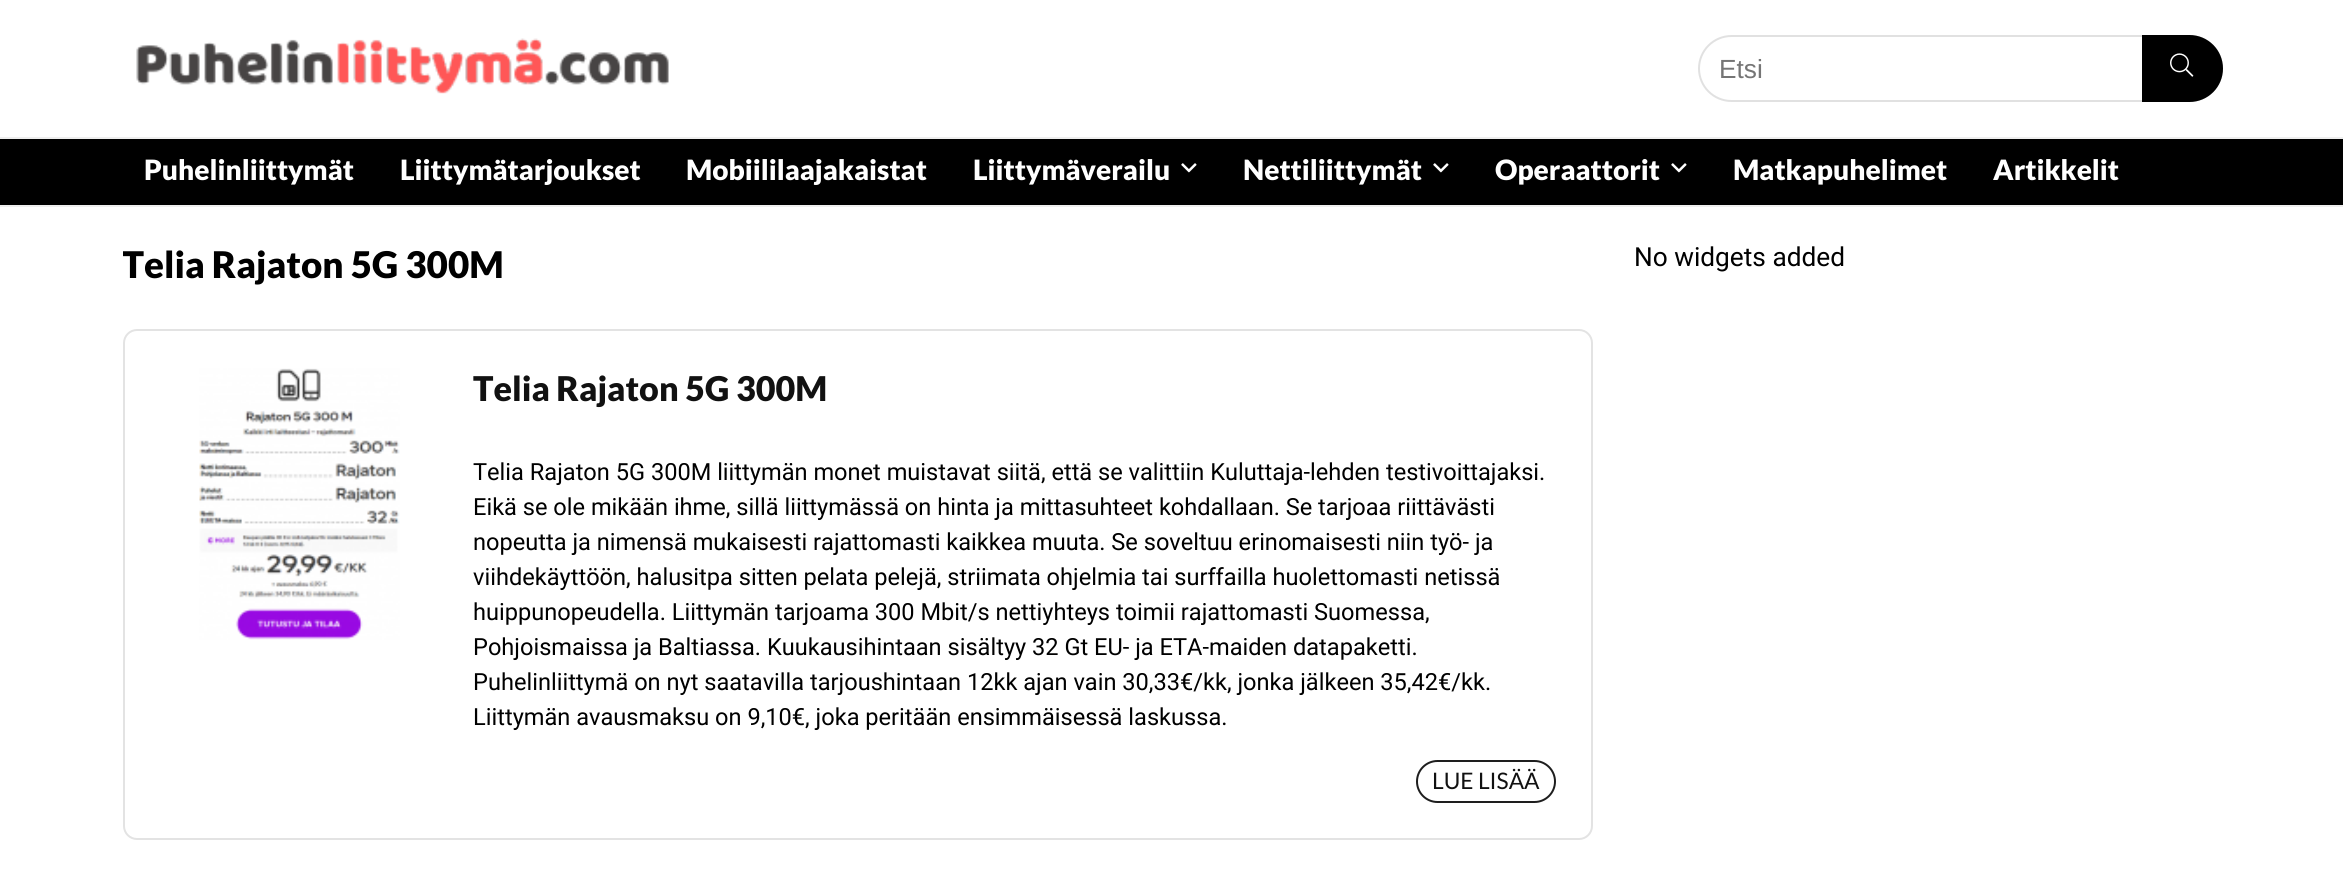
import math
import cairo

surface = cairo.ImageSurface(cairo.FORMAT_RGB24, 2343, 887)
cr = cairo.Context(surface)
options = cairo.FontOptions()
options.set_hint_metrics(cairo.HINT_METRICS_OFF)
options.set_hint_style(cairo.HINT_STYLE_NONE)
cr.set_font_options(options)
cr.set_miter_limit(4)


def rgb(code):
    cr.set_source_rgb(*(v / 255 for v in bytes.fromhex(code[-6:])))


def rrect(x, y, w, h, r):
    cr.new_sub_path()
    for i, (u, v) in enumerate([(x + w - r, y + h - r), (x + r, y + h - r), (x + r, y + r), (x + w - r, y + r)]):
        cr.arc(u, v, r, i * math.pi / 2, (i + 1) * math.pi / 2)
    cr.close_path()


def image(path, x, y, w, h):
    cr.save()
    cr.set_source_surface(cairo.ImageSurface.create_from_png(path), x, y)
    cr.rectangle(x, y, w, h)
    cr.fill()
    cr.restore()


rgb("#ffffff")
cr.paint()
image("img/1.png", 136, 38, 533, 56)
rrect(1699, 36, 523, 65, 32.5)
rgb("#e1e1e1")
cr.stroke()
rgb("#000000")
cr.new_path()
cr.move_to(2142, 35)
cr.line_to(2189.5, 35)
cr.curve_to(2208, 35, 2223, 50, 2223, 68.5)
cr.curve_to(2223, 87, 2208, 102, 2189.5, 102)
cr.line_to(2142, 102)
cr.close_path()
cr.fill()
image("img/2.png", 2170, 53, 24, 24)
for x, y, w, h, color in [
    (0, 139, 2343, 66, "#000000"),
    (0, 137, 2343, 2, "#eeeeee"),
    (0, 205, 2343, 2, "#eeeeee"),
]:
    rgb(color)
    cr.rectangle(x, y, w, h)
    cr.fill()
image("img/3.png", 1181, 163, 16, 10)
image("img/3.png", 1433, 163, 16, 10)
image("img/3.png", 1671, 163, 16, 10)
rrect(124, 330, 1468, 509, 13)
rgb("#e3e3e3")
cr.stroke()
image("img/4.png", 199, 368, 201, 272)
rrect(1417, 761, 138, 41, 20.5)
rgb("#1e1e1e")
cr.stroke()
cr.select_font_face("Liberation Sans")
cr.set_font_size(26.25)
rgb("#757575")
cr.move_to(1719, 78)
cr.show_text("Etsi")
cr.select_font_face("Lato Black")
cr.set_font_size(28)
rgb("#ffffff")
for x, y, s in [
    (144, 180, "Puhelinliittymät"),
    (400, 180, "Liittymätarjoukset"),
    (686, 180, "Mobiililaajakaistat"),
    (973, 180, "Liittymäverailu"),
    (1243, 180, "Nettiliittymät"),
    (1495, 180, "Operaattorit"),
    (1733, 180, "Matkapuhelimet"),
    (1993, 180, "Artikkelit"),
]:
    cr.move_to(x, y)
    cr.show_text(s)
cr.save()
cr.rectangle(123, 242, 1470, 43)
cr.clip()
cr.set_font_size(36.75)
rgb("#000000")
cr.move_to(122, 278)
cr.show_text("Telia Rajaton 5G 300M")
cr.restore()
cr.set_font_size(34.1)
rgb("#111111")
cr.move_to(473, 401)
cr.show_text("Telia Rajaton 5G 300M")
cr.select_font_face("Roboto")
cr.set_font_size(23.6)
rgb("#000000")
for x, y, s in [
    (473, 480, "Telia Rajaton 5G 300M liittymän monet muistavat siitä, että se valittiin Kuluttaja-lehden testivoittajaksi."),
    (473, 515, "Eikä se ole mikään ihme, sillä liittymässä on hinta ja mittasuhteet kohdallaan. Se tarjoaa riittävästi"),
    (473, 550, "nopeutta ja nimensä mukaisesti rajattomasti kaikkea muuta. Se soveltuu erinomaisesti niin työ- ja"),
    (473, 585, "viihdekäyttöön, halusitpa sitten pelata pelejä, striimata ohjelmia tai surffailla huolettomasti netissä"),
    (473, 620, "huippunopeudella. Liittymän tarjoama 300 Mbit/s nettiyhteys toimii rajattomasti Suomessa,"),
    (473, 655, "Pohjoismaissa ja Baltiassa. Kuukausihintaan sisältyy 32 Gt EU- ja ETA-maiden datapaketti."),
    (473, 690, "Puhelinliittymä on nyt saatavilla tarjoushintaan 12kk ajan vain 30,33€/kk, jonka jälkeen 35,42€/kk."),
    (473, 725, "Liittymän avausmaksu on 9,10€, joka peritään ensimmäisessä laskussa."),
]:
    cr.move_to(x, y)
    cr.show_text(s)
cr.select_font_face("Lato")
cr.set_font_size(22.75)
rgb("#111111")
cr.move_to(1432, 789)
cr.show_text("LUE LISÄÄ")
cr.select_font_face("Roboto")
cr.set_font_size(26.25)
rgb("#000000")
cr.move_to(1634, 266)
cr.show_text("No widgets added")
surface.write_to_png("page.png")
